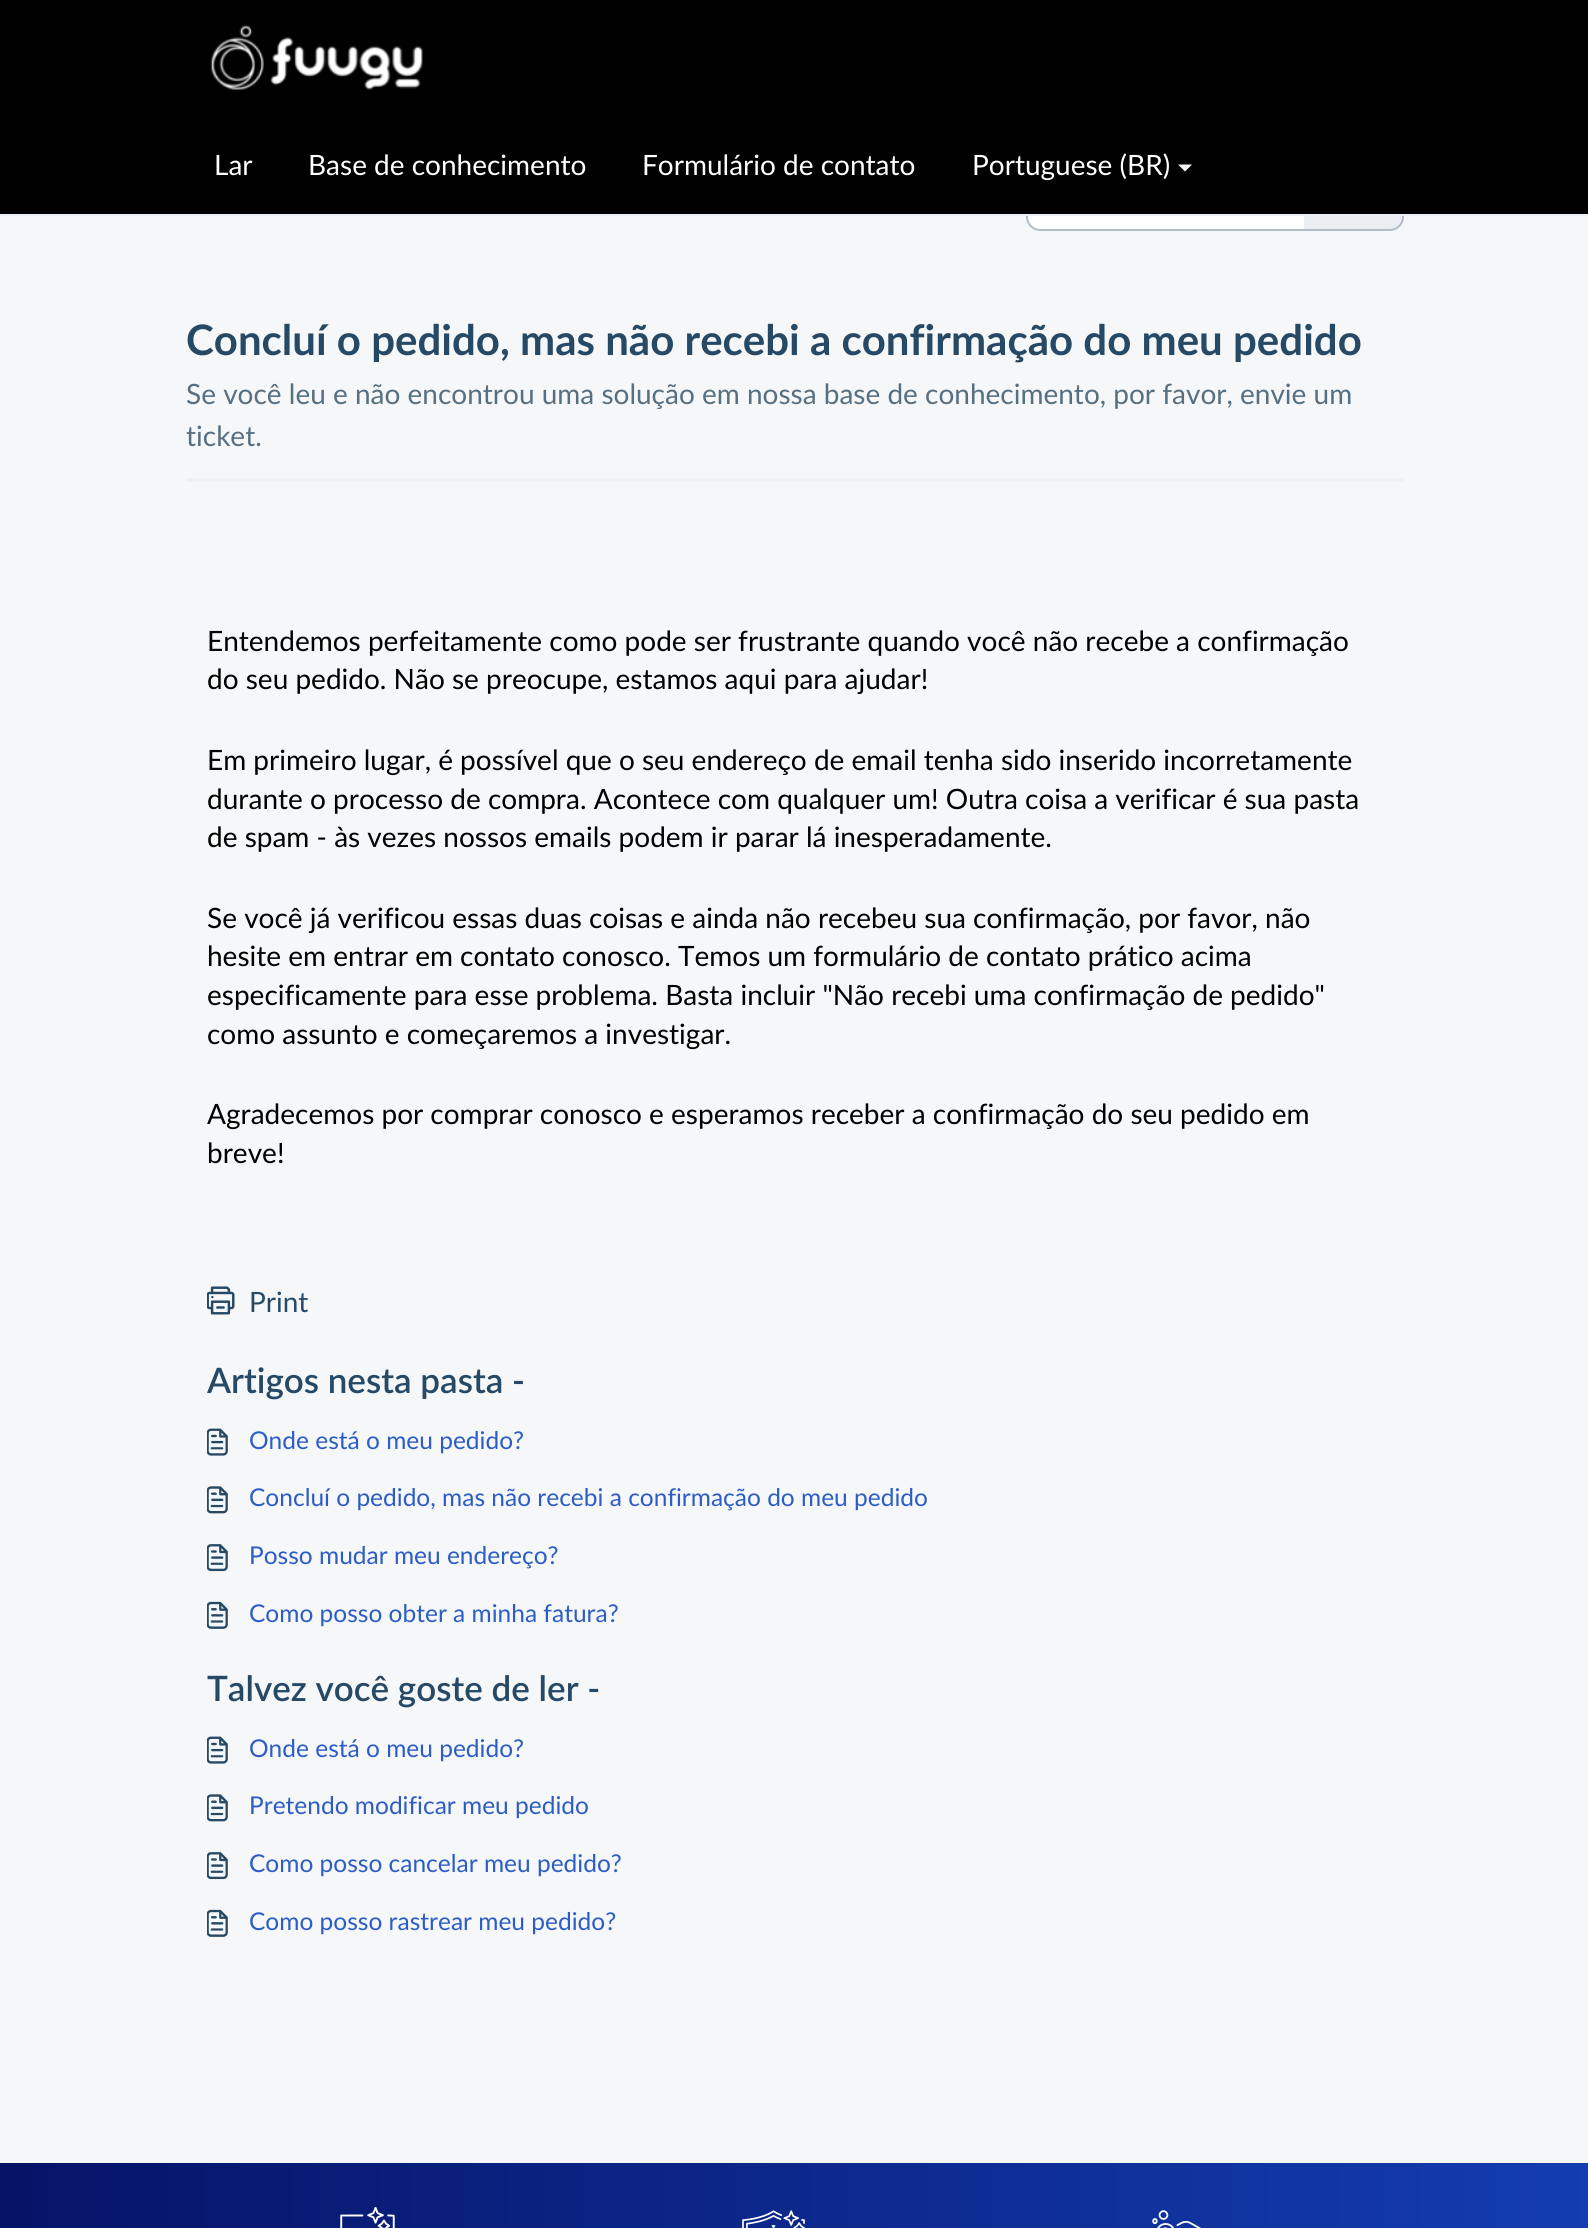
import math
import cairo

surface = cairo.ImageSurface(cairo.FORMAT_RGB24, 1588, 2228)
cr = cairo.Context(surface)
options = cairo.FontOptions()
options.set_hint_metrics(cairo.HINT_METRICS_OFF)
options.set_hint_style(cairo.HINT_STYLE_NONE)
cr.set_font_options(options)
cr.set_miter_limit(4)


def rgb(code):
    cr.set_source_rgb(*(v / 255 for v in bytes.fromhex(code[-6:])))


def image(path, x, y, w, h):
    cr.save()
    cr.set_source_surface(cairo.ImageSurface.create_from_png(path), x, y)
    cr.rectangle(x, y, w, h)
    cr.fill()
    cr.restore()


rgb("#f5f7f9")
cr.paint()
rgb("#ffffff")
cr.new_path()
cr.move_to(1040, 155)
cr.line_to(1305, 155)
cr.line_to(1305, 230)
cr.line_to(1040, 230)
cr.curve_to(1033, 230, 1027, 224, 1027, 217)
cr.line_to(1027, 168)
cr.curve_to(1027, 161, 1033, 155, 1040, 155)
cr.close_path()
cr.fill_preserve()
rgb("#b1bdc8")
cr.stroke()
rgb("#ebeff3")
cr.new_path()
cr.move_to(1304, 154)
cr.line_to(1390, 154)
cr.curve_to(1397.5, 154, 1404, 160.5, 1404, 168)
cr.line_to(1404, 217)
cr.curve_to(1404, 224.5, 1397.5, 231, 1390, 231)
cr.line_to(1304, 231)
cr.close_path()
cr.fill()
rgb("#b1bdc8")
cr.set_fill_rule(cairo.FILL_RULE_EVEN_ODD)
cr.new_path()
cr.move_to(1304, 154)
cr.line_to(1390, 154)
cr.curve_to(1397, 154, 1404, 160, 1404, 168)
cr.line_to(1404, 217)
cr.curve_to(1404, 225, 1397, 231, 1390, 231)
cr.line_to(1304, 231)
cr.close_path()
cr.move_to(1304, 156)
cr.line_to(1390, 156)
cr.curve_to(1396, 156, 1402, 161, 1402, 168)
cr.line_to(1402, 217)
cr.curve_to(1402, 224, 1396, 229, 1390, 229)
cr.line_to(1304, 229)
cr.close_path()
cr.fill()
rgb("#000000")
cr.rectangle(0, 0, 1588, 214)
cr.fill()
rgb("#ebeff3")
cr.rectangle(0, 214, 1588, 2)
cr.fill()
image("img/1.png", 210, 25, 213, 65)
rgb("#ffffff")
cr.set_fill_rule(cairo.FILL_RULE_WINDING)
cr.new_path()
cr.move_to(1178, 164.5)
cr.line_to(1192, 164.5)
cr.line_to(1185, 171.5)
cr.close_path()
cr.fill()
rgb("#eff1f2")
cr.rectangle(186, 478, 1218, 4)
cr.fill()
image("img/2.png", 207, 1286, 28, 29)
image("img/3.png", 207, 1428, 21, 28)
image("img/4.png", 207, 1486, 21, 28)
image("img/5.png", 207, 1544, 21, 28)
image("img/6.png", 207, 1601, 21, 28)
image("img/3.png", 207, 1736, 21, 28)
image("img/4.png", 207, 1794, 21, 28)
image("img/5.png", 207, 1852, 21, 28)
image("img/6.png", 207, 1909, 21, 28)
gradient = cairo.LinearGradient(-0.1, 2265, 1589, 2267)
gradient.add_color_stop_rgba(0, 0.024, 0.075, 0.404, 1)
gradient.add_color_stop_rgba(1, 0.075, 0.239, 0.69, 1)
cr.set_source(gradient)
cr.rectangle(0, 2163, 1588, 65)
cr.fill()
image("img/7.png", 340, 2207, 55, 21)
image("img/8.png", 742, 2210, 63, 18)
image("img/9.png", 1152, 2210, 49, 18)
cr.select_font_face("Lato")
cr.set_font_size(28)
rgb("#ffffff")
for x, y, s in [
    (214, 175, "Lar"),
    (308, 175, "Base de conhecimento"),
    (642, 175, "Formulário de contato"),
    (972, 175, "Portuguese (BR)"),
]:
    cr.move_to(x, y)
    cr.show_text(s)
cr.select_font_face("Lato", cairo.FONT_SLANT_NORMAL, cairo.FONT_WEIGHT_BOLD)
cr.set_font_size(42)
rgb("#264966")
cr.move_to(186, 355)
cr.show_text("Concluí o pedido, mas não recebi a confirmação do meu pedido")
cr.select_font_face("Lato")
cr.set_font_size(28)
rgb("#566f81")
cr.move_to(186, 404)
cr.show_text("Se você leu e não encontrou uma solução em nossa base de conhecimento, por favor, envie um")
cr.move_to(186, 446)
cr.show_text("ticket.")
rgb("#000000")
for x, y, s in [
    (207, 651, "Entendemos perfeitamente como pode ser frustrante quando você não recebe a confirmação"),
    (207, 689, "do seu pedido. Não se preocupe, estamos aqui para ajudar!"),
    (207, 770, "Em primeiro lugar, é possível que o seu endereço de email tenha sido inserido incorretamente"),
    (207, 809, "durante o processo de compra. Acontece com qualquer um! Outra coisa a verificar é sua pasta"),
    (207, 847, "de spam - às vezes nossos emails podem ir parar lá inesperadamente."),
    (207, 928, "Se você já verificou essas duas coisas e ainda não recebeu sua confirmação, por favor, não"),
    (207, 966, "hesite em entrar em contato conosco. Temos um formulário de contato prático acima"),
    (207, 1005, "especificamente para esse problema. Basta incluir \"Não recebi uma confirmação de pedido\""),
    (207, 1044, "como assunto e começaremos a investigar."),
    (207, 1124, "Agradecemos por comprar conosco e esperamos receber a confirmação do seu pedido em"),
    (207, 1163, "breve!"),
]:
    cr.move_to(x, y)
    cr.show_text(s)
rgb("#264966")
cr.move_to(249, 1312)
cr.show_text("Print")
cr.select_font_face("Lato SemiBold")
cr.set_font_size(35)
cr.move_to(207, 1393)
cr.show_text("Artigos nesta pasta -")
cr.select_font_face("Lato")
cr.set_font_size(24.5)
rgb("#2c5cc5")
for x, y, s in [
    (249, 1449, "Onde está o meu pedido?"),
    (249, 1506, "Concluí o pedido, mas não recebi a confirmação do meu pedido"),
    (249, 1564, "Posso mudar meu endereço?"),
    (249, 1622, "Como posso obter a minha fatura?"),
]:
    cr.move_to(x, y)
    cr.show_text(s)
cr.select_font_face("Lato SemiBold")
cr.set_font_size(35)
rgb("#264966")
cr.move_to(207, 1701)
cr.show_text("Talvez você goste de ler -")
cr.select_font_face("Lato")
cr.set_font_size(24.5)
rgb("#2c5cc5")
for x, y, s in [
    (249, 1757, "Onde está o meu pedido?"),
    (249, 1814, "Pretendo modificar meu pedido"),
    (249, 1872, "Como posso cancelar meu pedido?"),
    (249, 1930, "Como posso rastrear meu pedido?"),
]:
    cr.move_to(x, y)
    cr.show_text(s)
surface.write_to_png("page.png")
